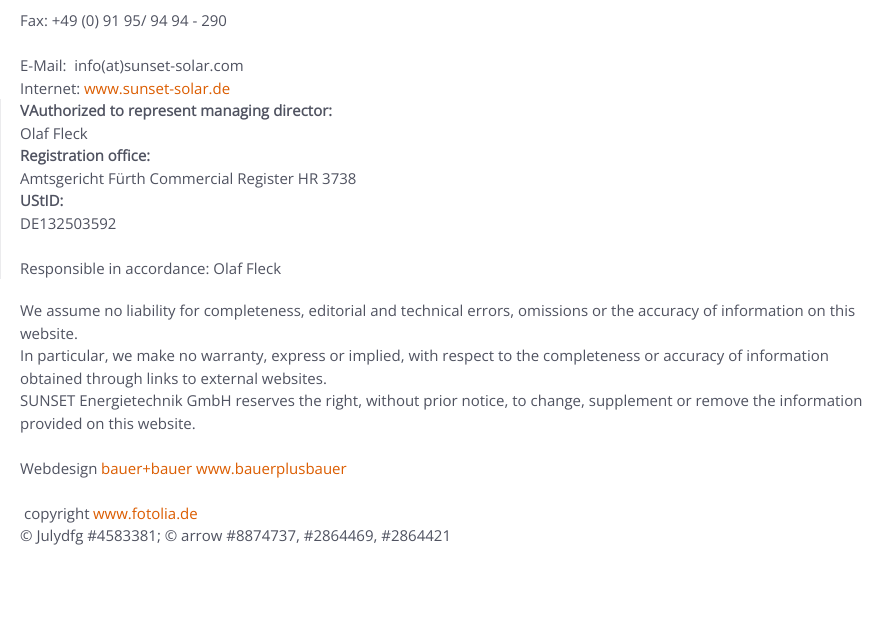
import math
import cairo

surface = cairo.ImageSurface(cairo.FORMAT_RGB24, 887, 643)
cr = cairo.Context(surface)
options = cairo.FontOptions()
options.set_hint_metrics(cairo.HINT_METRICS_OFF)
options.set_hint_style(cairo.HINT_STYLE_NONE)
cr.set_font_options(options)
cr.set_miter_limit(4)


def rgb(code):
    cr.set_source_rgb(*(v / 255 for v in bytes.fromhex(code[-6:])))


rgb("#ffffff")
cr.paint()
rgb("#ebebed")
cr.rectangle(0, 99, 1, 180)
cr.fill()
cr.select_font_face("Open Sans")
cr.set_font_size(15)
rgb("#4f5260")
for x, y, s in [
    (20, 26, "Fax: +49 (0) 91 95/ 94 94 - 290"),
    (20, 71, "E-Mail:  info(at)sunset-solar.com"),
    (20, 94, "Internet:"),
]:
    cr.move_to(x, y)
    cr.show_text(s)
rgb("#db5c00")
cr.move_to(84, 94)
cr.show_text("www.sunset-solar.de")
cr.select_font_face("Open Sans", cairo.FONT_SLANT_NORMAL, cairo.FONT_WEIGHT_BOLD)
rgb("#4f5260")
cr.move_to(20, 116)
cr.show_text("VAuthorized to represent managing director:")
cr.select_font_face("Open Sans")
cr.move_to(20, 139)
cr.show_text("Olaf Fleck")
cr.select_font_face("Open Sans", cairo.FONT_SLANT_NORMAL, cairo.FONT_WEIGHT_BOLD)
cr.move_to(20, 161)
cr.show_text("Registration office:")
cr.select_font_face("Open Sans")
cr.move_to(20, 184)
cr.show_text("Amtsgericht Fürth Commercial Register HR 3738")
cr.select_font_face("Open Sans", cairo.FONT_SLANT_NORMAL, cairo.FONT_WEIGHT_BOLD)
cr.move_to(20, 206)
cr.show_text("UStID:")
cr.select_font_face("Open Sans")
for x, y, s in [
    (20, 229, "DE132503592"),
    (20, 274, "Responsible in accordance: Olaf Fleck"),
    (20, 316, "We assume no liability for completeness, editorial and technical errors, omissions or the accuracy of information on this"),
    (20, 339, "website."),
    (20, 361, "In particular, we make no warranty, express or implied, with respect to the completeness or accuracy of information"),
    (20, 384, "obtained through links to external websites."),
    (20, 406, "SUNSET Energietechnik GmbH reserves the right, without prior notice, to change, supplement or remove the information"),
    (20, 429, "provided on this website."),
    (20, 474, "Webdesign"),
]:
    cr.move_to(x, y)
    cr.show_text(s)
rgb("#db5c00")
cr.move_to(101, 474)
cr.show_text("bauer+bauer www.bauerplusbauer")
rgb("#4f5260")
cr.move_to(24, 519)
cr.show_text("copyright")
rgb("#db5c00")
cr.move_to(93, 519)
cr.show_text("www.fotolia.de")
rgb("#4f5260")
cr.move_to(20, 541)
cr.show_text("© Julydfg #4583381; © arrow #8874737, #2864469, #2864421")
surface.write_to_png("page.png")
